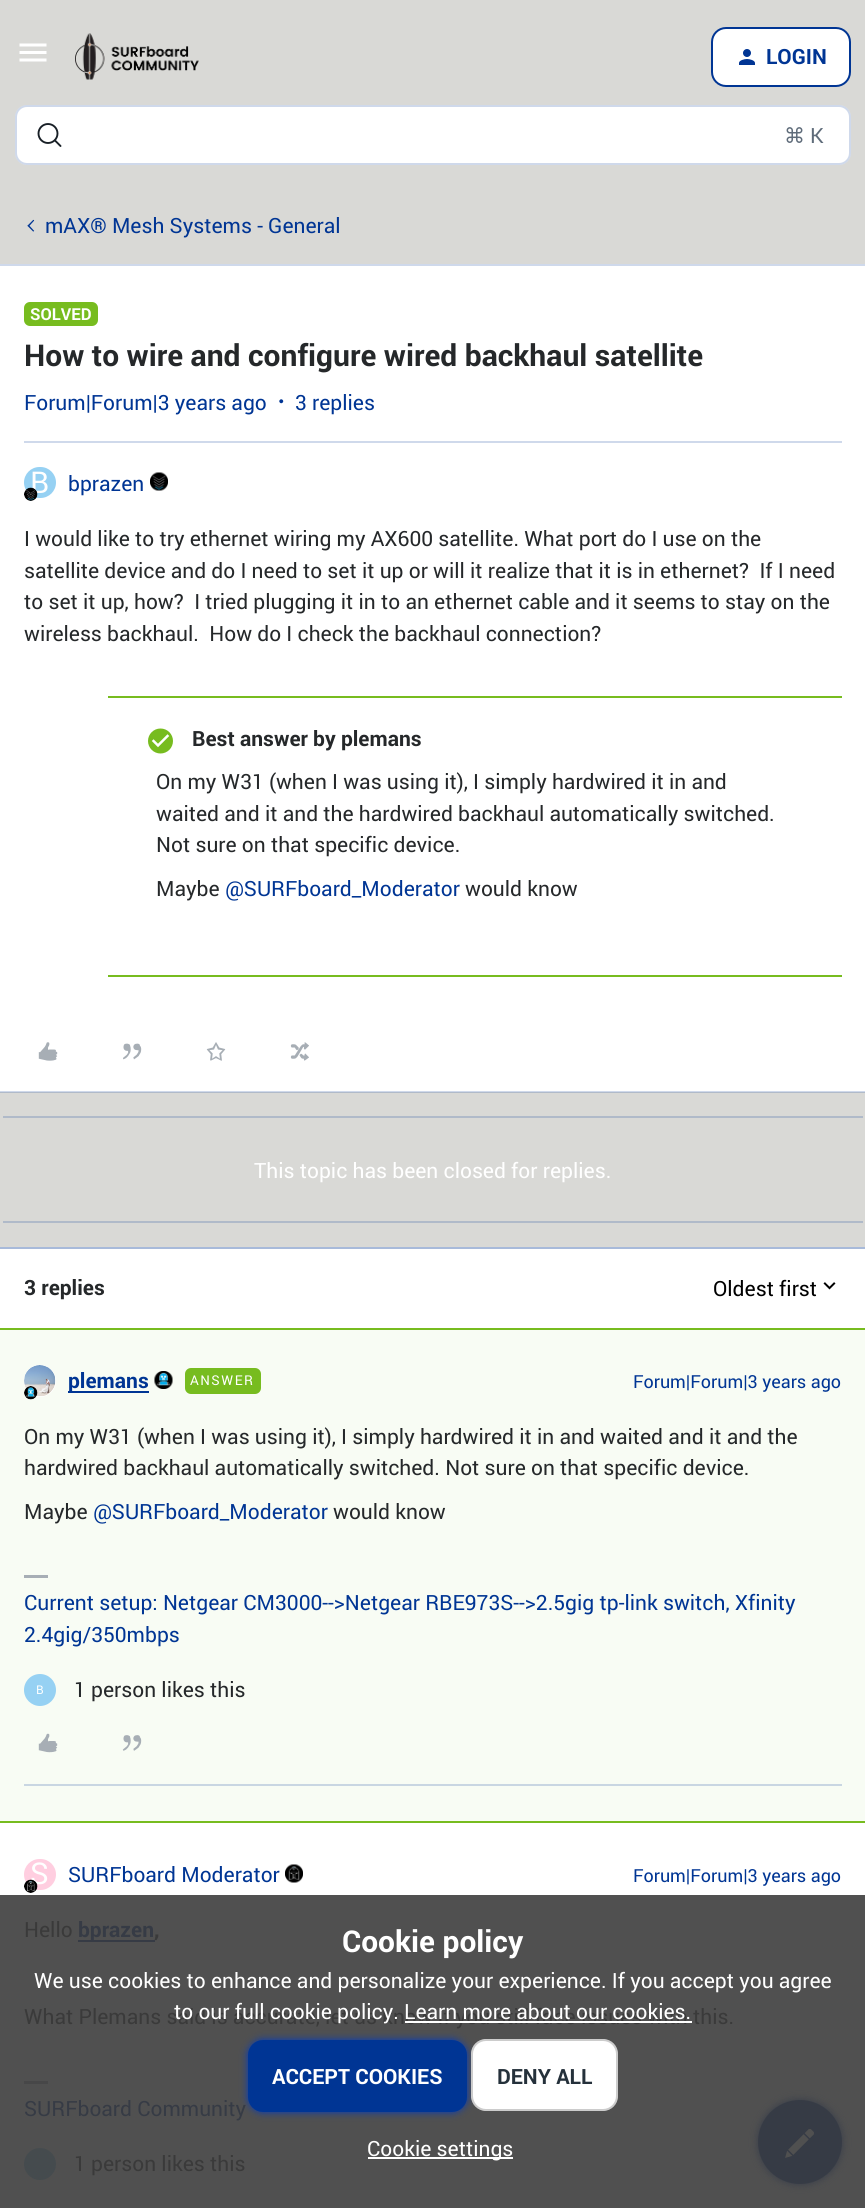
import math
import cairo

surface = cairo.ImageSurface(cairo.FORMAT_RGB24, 865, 2208)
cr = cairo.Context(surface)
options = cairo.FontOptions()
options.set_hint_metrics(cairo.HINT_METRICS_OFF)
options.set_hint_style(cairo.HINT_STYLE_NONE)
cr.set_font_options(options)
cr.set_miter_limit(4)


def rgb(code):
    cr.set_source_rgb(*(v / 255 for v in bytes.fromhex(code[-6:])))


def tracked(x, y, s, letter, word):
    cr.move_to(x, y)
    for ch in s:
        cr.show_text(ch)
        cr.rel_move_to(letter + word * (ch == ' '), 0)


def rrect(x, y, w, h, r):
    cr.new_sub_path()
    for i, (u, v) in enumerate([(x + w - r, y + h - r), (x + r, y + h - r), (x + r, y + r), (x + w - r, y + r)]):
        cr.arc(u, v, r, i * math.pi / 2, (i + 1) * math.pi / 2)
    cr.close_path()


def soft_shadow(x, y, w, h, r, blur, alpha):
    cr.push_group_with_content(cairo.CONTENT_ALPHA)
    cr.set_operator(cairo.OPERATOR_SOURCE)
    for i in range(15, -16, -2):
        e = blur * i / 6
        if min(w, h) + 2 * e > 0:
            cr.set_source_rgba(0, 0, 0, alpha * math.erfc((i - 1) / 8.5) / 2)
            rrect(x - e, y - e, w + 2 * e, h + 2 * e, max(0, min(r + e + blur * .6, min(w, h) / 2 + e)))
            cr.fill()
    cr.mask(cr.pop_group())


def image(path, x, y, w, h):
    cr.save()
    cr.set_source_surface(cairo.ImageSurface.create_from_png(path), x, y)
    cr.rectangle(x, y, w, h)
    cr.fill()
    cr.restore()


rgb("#d9d9d6")
cr.paint()
rgb("#b0bac9")
cr.rectangle(0, 1092, 865, 1)
cr.fill()
image("img/1.png", 19, 43, 28, 19)
image("img/2.png", 75, 33, 124, 47)
rgb("#ffffff")
rrect(712, 28, 138, 58, 14)
cr.fill_preserve()
rgb("#003594")
cr.stroke()
image("img/3.png", 739, 49, 16, 16)
rgb("#ffffff")
rrect(15, 105, 836, 60, 12)
cr.fill()
rrect(16, 106, 834, 58, 11)
cr.set_source_rgba(0, 0.208, 0.58, 0.19)
cr.stroke()
cr.arc(48, 133.5, 9.5, 0, 2 * math.pi)
rgb("#181f26")
cr.set_line_width(1.9)
cr.stroke()
cr.new_path()
cr.move_to(55, 140.5)
cr.line_to(60.5, 146)
cr.set_line_cap(cairo.LINE_CAP_ROUND)
cr.stroke()
image("img/4.png", 27, 219, 8, 13)
for x, y, w, h, color in [
    (0, 266, 865, 825, "#ffffff"),
    (0, 1091, 865, 1, "#cfd9eb"),
    (0, 264, 865, 2, "#cfd9eb"),
]:
    rgb(color)
    cr.rectangle(x, y, w, h)
    cr.fill()
rgb("#77bc1f")
rrect(24, 302, 74, 24, 6)
cr.fill()
image("img/5.png", 279, 399, 5, 5)
rgb("#cfd9eb")
cr.rectangle(24, 441, 818, 2)
cr.fill()
rgb("#96d1f3")
rrect(24, 467, 32, 31, 15.5)
cr.fill()
image("img/7.png", 150, 472, 18, 19)
rgb("#77bc1f")
cr.rectangle(108, 696, 734, 2)
cr.fill()
cr.rectangle(108, 975, 734, 2)
cr.fill()
image("img/8.png", 148, 728, 25, 26)
image("img/9.png", 38, 1042, 20, 19)
image("img/10.png", 123, 1043, 19, 17)
image("img/11.png", 206, 1042, 20, 19)
image("img/12.png", 290, 1042, 19, 19)
for x, y, w, h, color in [
    (3, 1116, 860, 2, "#b0bac9"),
    (3, 1221, 860, 2, "#b0bac9"),
    (0, 1249, 865, 646, "#ffffff"),
    (0, 1895, 865, 313, "#505050"),
    (0, 1330, 865, 491, "#f8fcf4"),
    (0, 1247, 865, 2, "#a8bada"),
]:
    rgb(color)
    cr.rectangle(x, y, w, h)
    cr.fill()
image("img/13.png", 823, 1282, 13, 8)
rgb("#77bc1f")
cr.rectangle(0, 1328, 865, 2)
cr.fill()
cr.rectangle(0, 1821, 865, 2)
cr.fill()
rgb("#ffffff")
cr.arc(40, 1381, 16, 0, 2 * math.pi)
cr.fill()
image("img/14.png", 24, 1365, 32, 32)
image("img/15.png", 24, 1386, 14, 14)
rgb("#003594")
cr.rectangle(68, 1391, 81, 2)
cr.fill()
image("img/16.png", 154, 1371, 19, 18)
rgb("#77bc1f")
rrect(185, 1368, 76, 26, 6)
cr.fill()
rgb("#a7aeb5")
cr.rectangle(24, 1575, 24, 3)
cr.fill()
rgb("#96d1f3")
cr.arc(40, 1690, 16, 0, 2 * math.pi)
cr.fill()
image("img/17.png", 38, 1733, 20, 20)
image("img/18.png", 122, 1735, 20, 16)
rgb("#c9d6e2")
cr.rectangle(24, 1784, 818, 2)
cr.fill()
rgb("#ffcee0")
rrect(24, 1859, 32, 31, 15.5)
cr.fill()
image("img/20.png", 285, 1864, 18, 19)
rgb("#363b45")
cr.rectangle(78, 1940, 77, 2)
cr.fill()
rgb("#474748")
cr.rectangle(24, 2081, 24, 3)
cr.fill()
rgb("#454b4e")
cr.arc(40, 2164, 16, 0, 2 * math.pi)
cr.fill()
image("img/21.png", 47, 2207, 2, 1)
rgb("#0039c1")
soft_shadow(248, 2040, 219, 72, 15, 4, 1)
rgb("#003594")
rrect(249, 2041, 217, 70, 14)
cr.fill_preserve()
cr.set_line_width(2)
cr.set_line_cap(cairo.LINE_CAP_BUTT)
cr.stroke()
rgb("#ffffff")
rrect(471, 2039, 147, 72, 15)
cr.fill()
rrect(472, 2040, 145, 70, 14)
cr.set_source_rgba(0, 0, 0, 0.2)
cr.stroke()
rgb("#ffffff")
cr.rectangle(368, 2157, 145, 2)
cr.fill()
rgb("#363c49")
soft_shadow(758, 2100, 84, 84, 42, 4, 1)
rgb("#363b45")
cr.arc(800, 2142, 41, 0, 2 * math.pi)
cr.fill_preserve()
cr.stroke()
image("img/22.png", 785, 2129, 29, 29)
cr.select_font_face("Roboto", cairo.FONT_SLANT_NORMAL, cairo.FONT_WEIGHT_BOLD)
cr.set_font_size(21)
rgb("#003594")
cr.move_to(766, 64)
cr.show_text("LOGIN")
cr.select_font_face("DejaVu Sans")
rgb("#5f6c7a")
cr.move_to(784, 143)
cr.show_text("⌘")
cr.select_font_face("Roboto")
cr.move_to(810, 143)
cr.show_text("K")
rgb("#003594")
cr.move_to(45, 233)
cr.show_text("mAX® Mesh Systems - General")
cr.select_font_face("Roboto", cairo.FONT_SLANT_NORMAL, cairo.FONT_WEIGHT_BOLD)
cr.set_font_size(16.5)
rgb("#ffffff")
cr.move_to(30, 320)
cr.show_text("SOLVED")
cr.set_font_size(30)
rgb("#25282a")
cr.move_to(24, 366)
cr.show_text("How to wire and configure wired backhaul satellite")
cr.select_font_face("Roboto")
cr.set_font_size(21)
rgb("#003594")
cr.move_to(24, 410)
cr.show_text("Forum|Forum|3 years ago")
cr.move_to(295, 410)
cr.show_text("3 replies")
cr.set_font_size(30)
rgb("#ffffff")
cr.move_to(30, 493)
cr.show_text("B")
image("img/6.png", 24, 487, 14, 14)
cr.set_font_size(21)
rgb("#003594")
cr.move_to(68, 491)
cr.show_text("bprazen")
rgb("#25282a")
for x, y, s in [
    (24, 546, "I would like to try ethernet wiring my AX600 satellite. What port do I use on the"),
    (24, 578, "satellite device and do I need to set it up or will it realize that it is in ethernet?  If I need"),
    (24, 609, "to set it up, how?  I tried plugging it in to an ethernet cable and it seems to stay on the"),
    (24, 641, "wireless backhaul.  How do I check the backhaul connection?"),
]:
    cr.move_to(x, y)
    cr.show_text(s)
cr.select_font_face("Roboto", cairo.FONT_SLANT_NORMAL, cairo.FONT_WEIGHT_BOLD)
cr.move_to(192, 746)
cr.show_text("Best answer by plemans")
cr.select_font_face("Roboto")
for x, y, s in [
    (156, 789, "On my W31 (when I was using it), I simply hardwired it in and"),
    (156, 821, "waited and it and the hardwired backhaul automatically switched."),
    (156, 852, "Not sure on that specific device."),
    (156, 896, "Maybe"),
]:
    cr.move_to(x, y)
    cr.show_text(s)
rgb("#003594")
cr.move_to(225, 896)
cr.show_text("@SURFboard_Moderator")
rgb("#25282a")
cr.move_to(465, 896)
cr.show_text("would know")
rgb("#ffffff")
cr.move_to(254, 1178)
cr.show_text("This topic has been closed for replies.")
cr.select_font_face("Roboto", cairo.FONT_SLANT_NORMAL, cairo.FONT_WEIGHT_BOLD)
rgb("#25282a")
cr.move_to(24, 1295)
cr.show_text("3 replies")
cr.select_font_face("Roboto")
rgb("#000000")
cr.move_to(713, 1296)
cr.show_text("Oldest first")
cr.select_font_face("Roboto", cairo.FONT_SLANT_NORMAL, cairo.FONT_WEIGHT_BOLD)
rgb("#003594")
cr.move_to(68, 1388)
cr.show_text("plemans")
cr.select_font_face("Roboto")
cr.set_font_size(13.5)
rgb("#ffffff")
tracked(190, 1385, "ANSWER", 1.5, 0)
cr.set_font_size(18)
rgb("#003594")
cr.move_to(633, 1388)
cr.show_text("Forum|Forum|3 years ago")
cr.set_font_size(21)
rgb("#25282a")
for x, y, s in [
    (24, 1444, "On my W31 (when I was using it), I simply hardwired it in and waited and it and the"),
    (24, 1475, "hardwired backhaul automatically switched. Not sure on that specific device."),
    (24, 1519, "Maybe"),
]:
    cr.move_to(x, y)
    cr.show_text(s)
rgb("#003594")
cr.move_to(93, 1519)
cr.show_text("@SURFboard_Moderator")
rgb("#25282a")
cr.move_to(333, 1519)
cr.show_text("would know")
rgb("#003594")
cr.move_to(24, 1610)
cr.show_text("Current setup: Netgear CM3000-->Netgear RBE973S-->2.5gig tp-link switch, Xfinity")
cr.move_to(24, 1642)
cr.show_text("2.4gig/350mbps")
cr.set_font_size(12)
rgb("#ffffff")
cr.move_to(36, 1694)
cr.show_text("B")
cr.set_font_size(21)
rgb("#25282a")
cr.move_to(74, 1697)
cr.show_text("1 person likes this")
cr.set_font_size(30)
rgb("#ffffff")
cr.move_to(30, 1884)
cr.show_text("S")
image("img/19.png", 24, 1879, 14, 14)
cr.set_font_size(21)
rgb("#003594")
cr.move_to(68, 1882)
cr.show_text("SURFboard Moderator")
cr.set_font_size(18)
cr.move_to(633, 1882)
cr.show_text("Forum|Forum|3 years ago")
cr.set_font_size(21)
rgb("#3a3a3a")
cr.move_to(24, 1937)
cr.show_text("Hello")
cr.select_font_face("Roboto", cairo.FONT_SLANT_NORMAL, cairo.FONT_WEIGHT_BOLD)
rgb("#363b45")
cr.move_to(78, 1937)
cr.show_text("bprazen")
rgb("#3a3a3a")
cr.move_to(154, 1937)
cr.show_text(",")
cr.select_font_face("Roboto")
cr.move_to(24, 2024)
cr.show_text("What Plemans said is accurate, let us know if you still face issues with this.")
rgb("#363b45")
cr.move_to(24, 2116)
cr.show_text("SURFboard Community")
rgb("#3a3a3a")
cr.move_to(74, 2171)
cr.show_text("1 person likes this")
cr.select_font_face("Roboto", cairo.FONT_SLANT_NORMAL, cairo.FONT_WEIGHT_BOLD)
cr.set_font_size(30)
rgb("#ffffff")
cr.move_to(342, 1952)
cr.show_text("Cookie policy")
cr.select_font_face("Roboto")
cr.set_font_size(21)
cr.move_to(34, 1988)
cr.show_text("We use cookies to enhance and personalize your experience. If you accept you agree")
cr.move_to(174, 2019)
cr.show_text("to our full cookie policy. Learn more about our cookies.")
cr.rectangle(405, 2021, 287, 2)
cr.fill()
cr.select_font_face("Roboto", cairo.FONT_SLANT_NORMAL, cairo.FONT_WEIGHT_BOLD)
cr.move_to(272, 2084)
cr.show_text("ACCEPT COOKIES")
rgb("#25313b")
cr.move_to(497, 2084)
cr.show_text("DENY ALL")
cr.select_font_face("Roboto")
rgb("#ffffff")
cr.move_to(367, 2156)
cr.show_text("Cookie settings")
surface.write_to_png("page.png")
